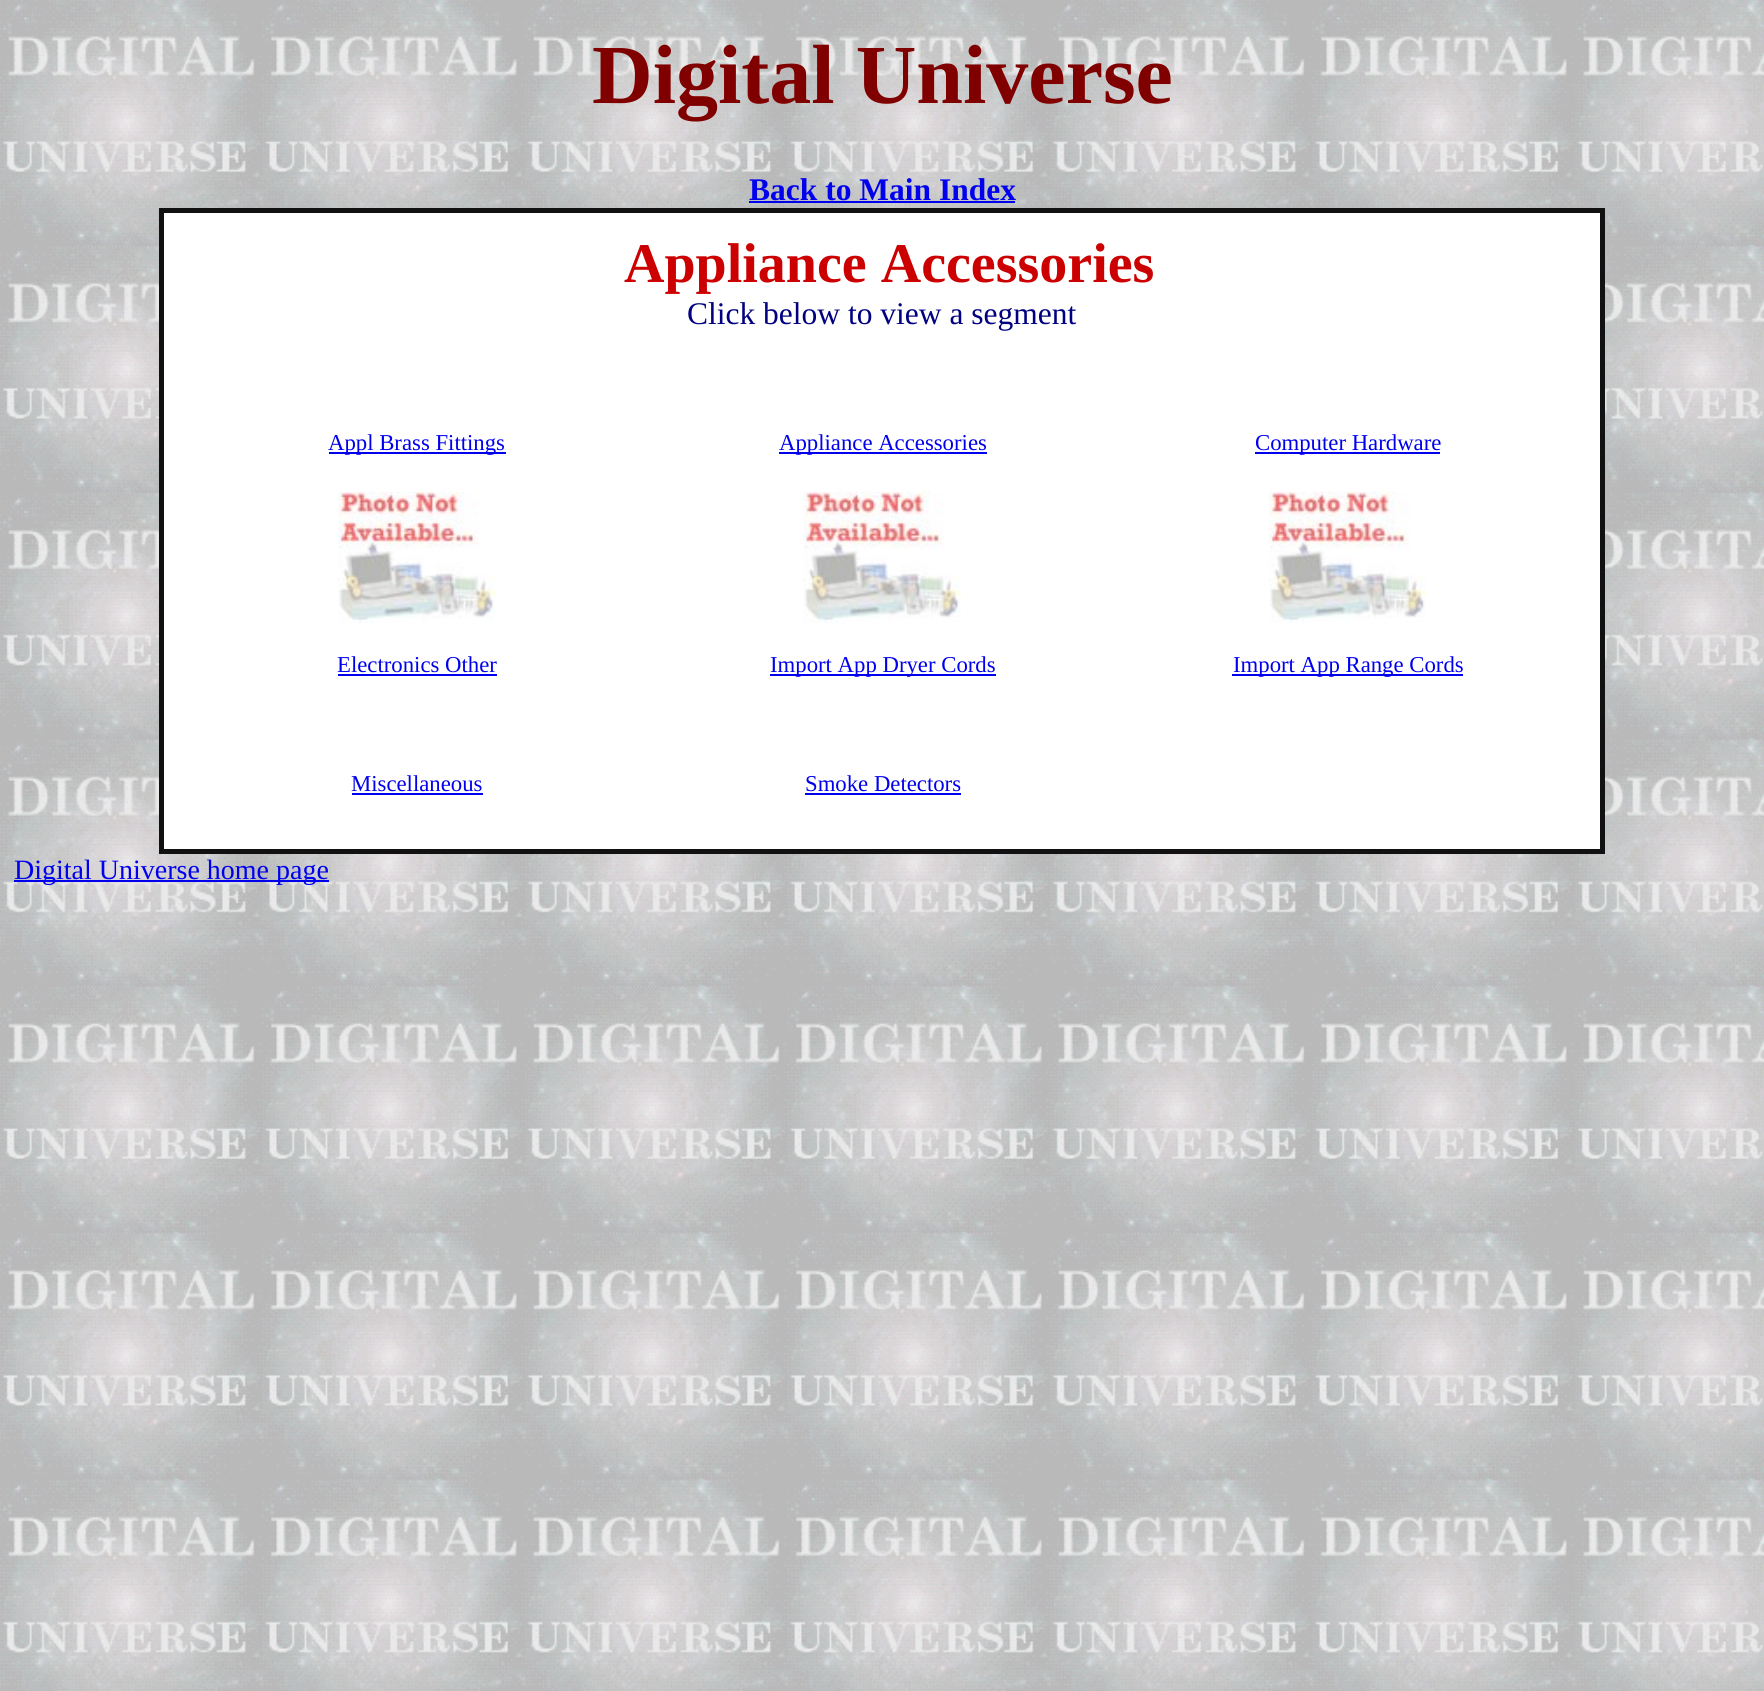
import math
import cairo

surface = cairo.ImageSurface(cairo.FORMAT_RGB24, 1764, 1691)
cr = cairo.Context(surface)
options = cairo.FontOptions()
options.set_hint_metrics(cairo.HINT_METRICS_OFF)
options.set_hint_style(cairo.HINT_STYLE_NONE)
cr.set_font_options(options)
cr.set_miter_limit(4)


def rgb(code):
    cr.set_source_rgb(*(v / 255 for v in bytes.fromhex(code[-6:])))


def image(path, x, y, w, h):
    cr.save()
    cr.set_source_surface(cairo.ImageSurface.create_from_png(path), x, y)
    cr.rectangle(x, y, w, h)
    cr.fill()
    cr.restore()


rgb("#ffffff")
cr.paint()
image("img/1.png", 0, 0, 1764, 1691)
for x, y, w, h, color in [
    (749, 201, 266, 2, "#0000ee"),
    (164, 213, 1436, 636, "#ffffff"),
    (159, 208, 1446, 5, "#111111"),
    (1600, 208, 5, 646, "#111111"),
    (159, 849, 1446, 5, "#111111"),
    (159, 208, 5, 646, "#111111"),
    (329, 452, 177, 2, "#0000ee"),
    (779, 452, 208, 2, "#0000ee"),
    (1255, 452, 185, 2, "#0000ee"),
]:
    rgb(color)
    cr.rectangle(x, y, w, h)
    cr.fill()
image("img/2.png", 337, 491, 159, 132)
cr.rectangle(338, 674, 159, 2)
cr.fill()
image("img/3.png", 803, 491, 158, 132)
cr.rectangle(770, 674, 226, 2)
cr.fill()
image("img/2.png", 1268, 491, 159, 132)
for x, y, w, h, color in [
    (1232, 674, 231, 2, "#0000ee"),
    (352, 793, 131, 2, "#0000ee"),
    (805, 793, 156, 2, "#0000ee"),
    (14, 880, 315, 2, "#0000ee"),
]:
    rgb(color)
    cr.rectangle(x, y, w, h)
    cr.fill()
cr.select_font_face("Liberation Serif", cairo.FONT_SLANT_NORMAL, cairo.FONT_WEIGHT_BOLD)
cr.set_font_size(84)
rgb("#800000")
cr.move_to(592, 103)
cr.show_text("Digital Universe")
cr.set_font_size(31.5)
rgb("#0000ee")
cr.move_to(749, 200)
cr.show_text("Back to Main Index")
cr.set_font_size(56)
rgb("#cc0000")
cr.move_to(624, 282)
cr.show_text("Appliance Accessories")
cr.select_font_face("Liberation Serif")
cr.set_font_size(31.5)
rgb("#000080")
cr.move_to(687, 324)
cr.show_text("Click below to view a segment")
cr.set_font_size(22.75)
rgb("#0000ee")
for x, y, s in [
    (328, 450, "Appl Brass Fittings"),
    (779, 450, "Appliance Accessories"),
    (1255, 450, "Computer Hardware"),
    (337, 672, "Electronics Other"),
    (770, 672, "Import App Dryer Cords"),
    (1233, 672, "Import App Range Cords"),
    (351, 791, "Miscellaneous"),
    (805, 791, "Smoke Detectors"),
]:
    cr.move_to(x, y)
    cr.show_text(s)
cr.set_font_size(28)
cr.move_to(14, 879)
cr.show_text("Digital Universe home page")
surface.write_to_png("page.png")
